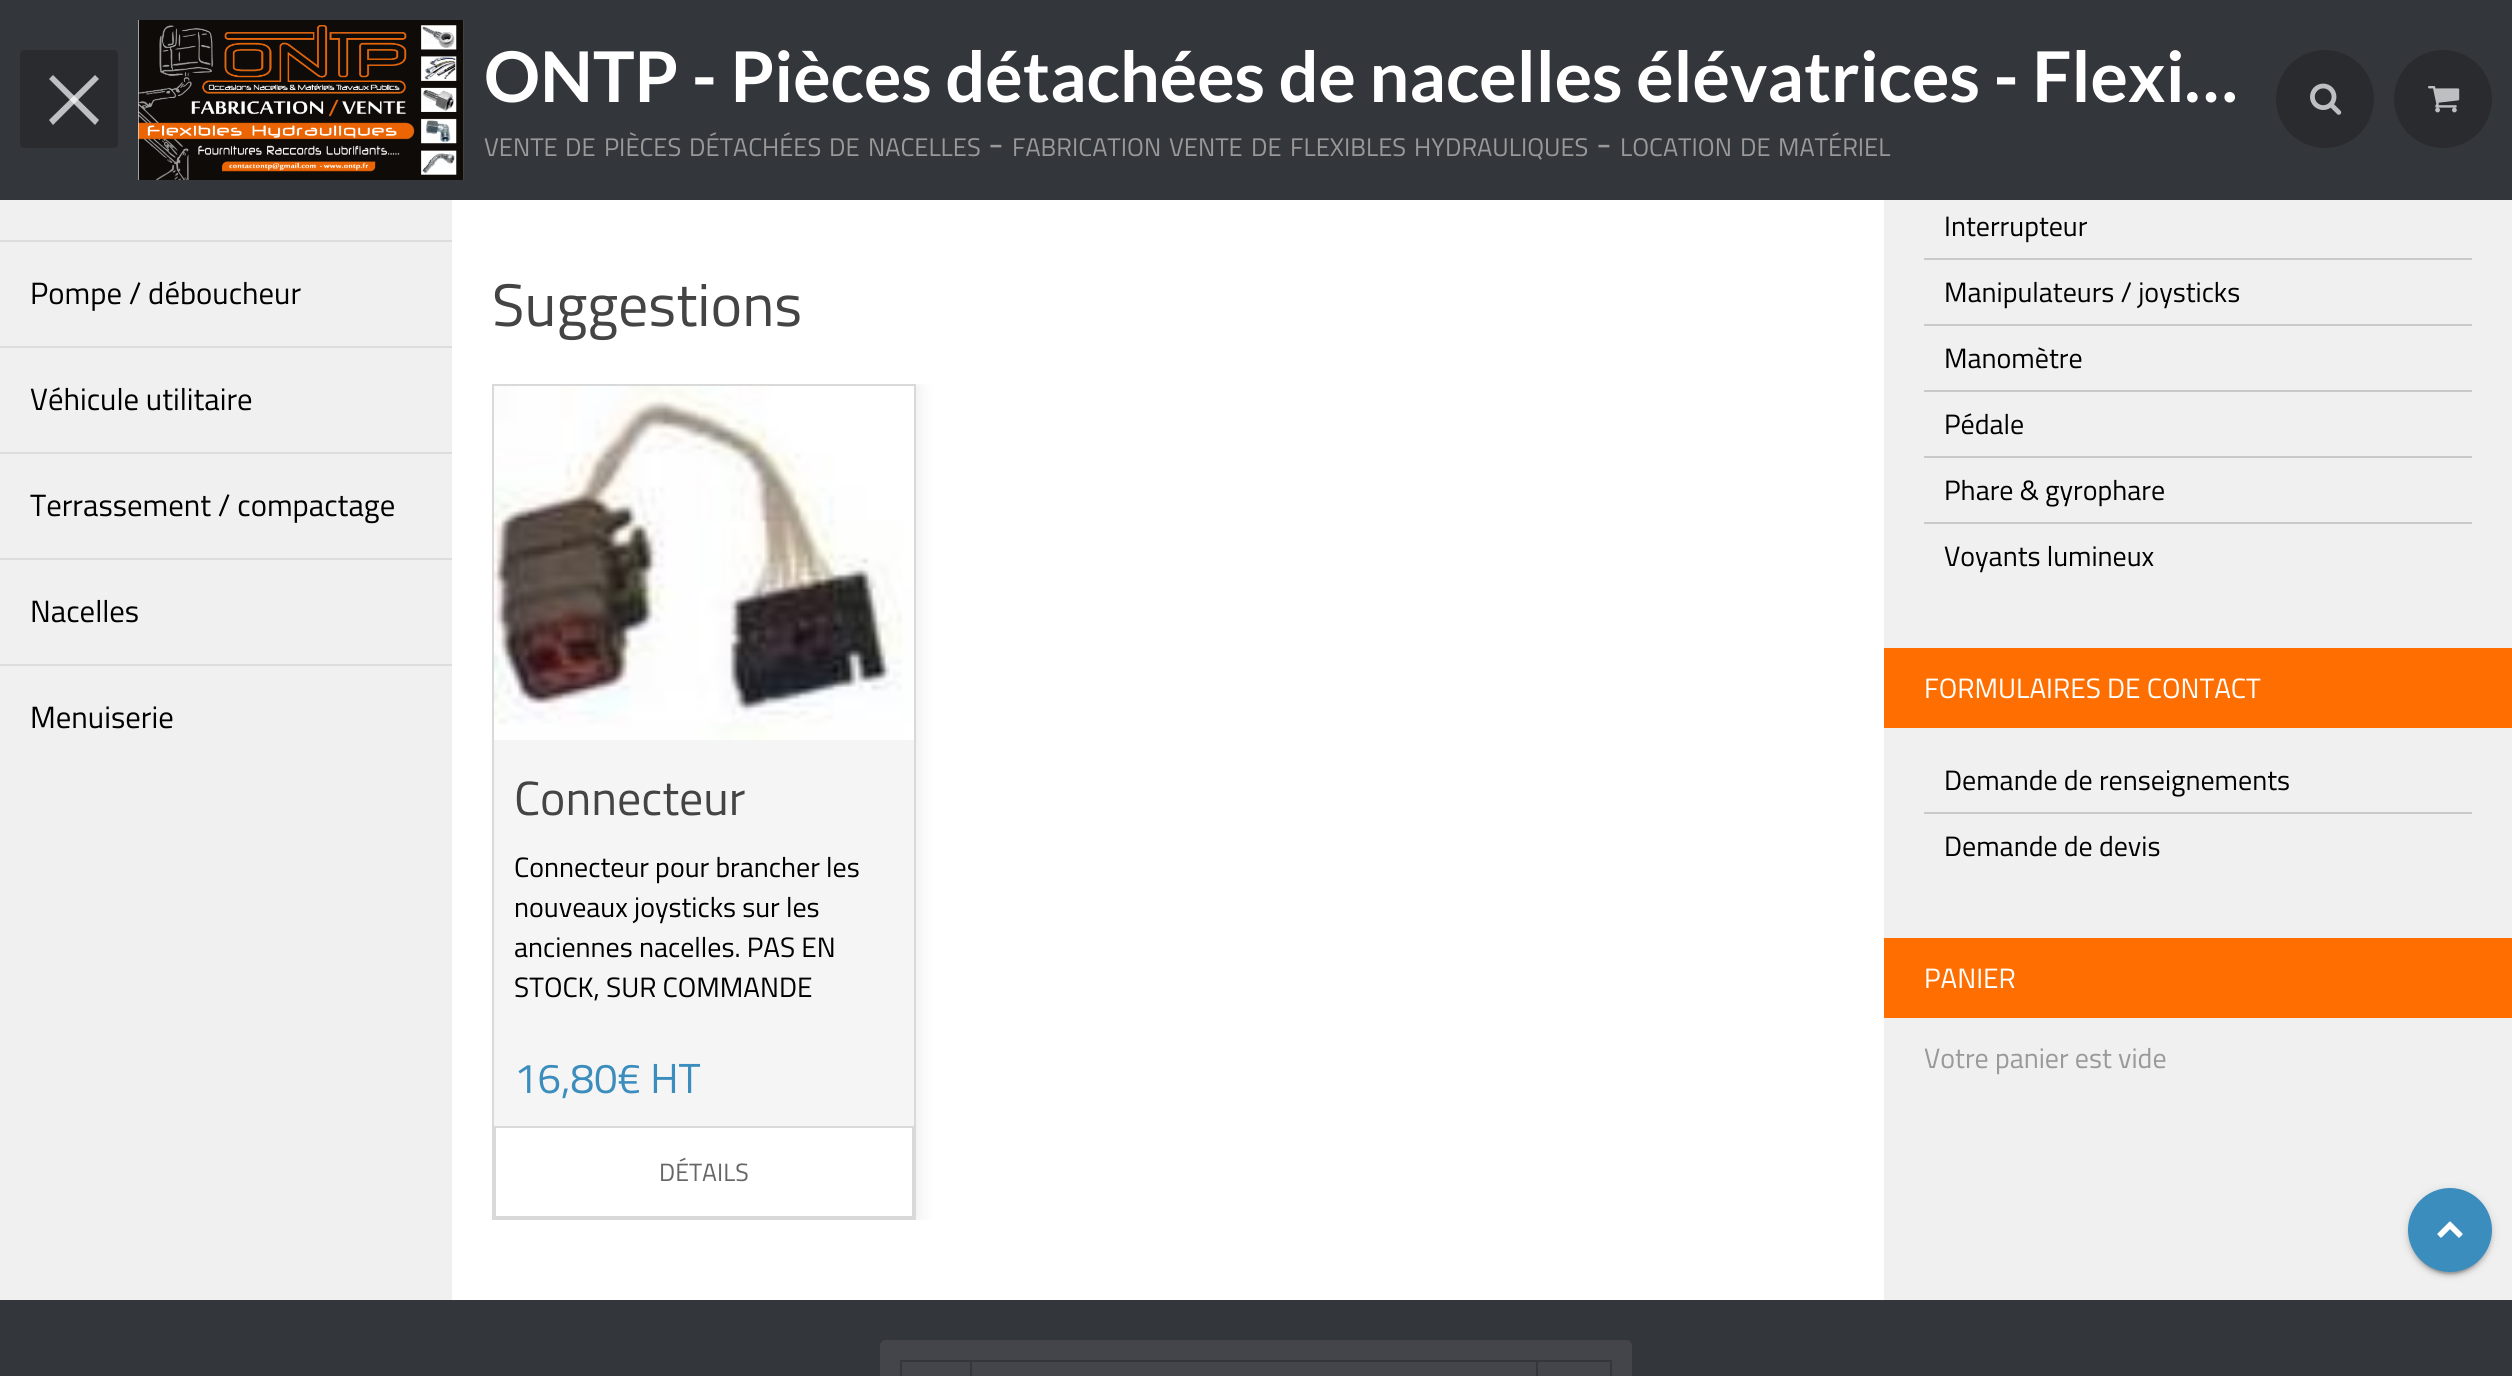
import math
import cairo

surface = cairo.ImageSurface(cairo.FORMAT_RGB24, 2512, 1376)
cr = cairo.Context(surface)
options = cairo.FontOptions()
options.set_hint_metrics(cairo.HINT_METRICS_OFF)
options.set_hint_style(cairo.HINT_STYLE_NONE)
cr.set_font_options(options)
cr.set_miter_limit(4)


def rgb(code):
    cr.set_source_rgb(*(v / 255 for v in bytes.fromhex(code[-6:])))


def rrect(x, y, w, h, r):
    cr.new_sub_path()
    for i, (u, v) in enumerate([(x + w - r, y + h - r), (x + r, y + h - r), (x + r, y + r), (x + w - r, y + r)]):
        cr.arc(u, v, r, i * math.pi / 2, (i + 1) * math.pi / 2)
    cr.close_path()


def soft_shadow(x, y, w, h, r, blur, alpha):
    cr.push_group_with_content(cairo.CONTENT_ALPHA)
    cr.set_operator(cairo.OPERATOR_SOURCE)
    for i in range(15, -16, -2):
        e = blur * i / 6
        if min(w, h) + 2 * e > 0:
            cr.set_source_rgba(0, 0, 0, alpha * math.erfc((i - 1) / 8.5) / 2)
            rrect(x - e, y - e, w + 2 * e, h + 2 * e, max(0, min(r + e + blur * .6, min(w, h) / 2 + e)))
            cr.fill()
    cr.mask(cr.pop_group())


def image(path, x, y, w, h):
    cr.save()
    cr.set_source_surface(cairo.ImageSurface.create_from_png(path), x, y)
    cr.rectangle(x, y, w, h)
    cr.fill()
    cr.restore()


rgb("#ffffff")
cr.paint()
rgb("#33363b")
cr.rectangle(0, 0, 2512, 200)
cr.fill()
rgb("#292b2f")
rrect(20, 50, 98, 98, 4)
cr.fill()
rgb("#bfbfc1")
cr.new_path()
cr.move_to(53, 75)
cr.line_to(99, 120)
cr.line_to(95, 125)
cr.line_to(49, 79)
cr.close_path()
cr.fill()
cr.set_source_rgba(1, 1, 1, 0.7)
cr.new_path()
cr.move_to(49, 120)
cr.line_to(95, 75)
cr.line_to(99, 79)
cr.line_to(53, 125)
cr.close_path()
cr.fill()
image("img/1.png", 138, 20, 326, 160)
rgb("#292b2f")
cr.arc(2325, 99, 49, 0, 2 * math.pi)
cr.fill()
image("img/2.png", 2310, 83, 32, 32)
cr.arc(2443, 99, 49, 0, 2 * math.pi)
cr.fill()
image("img/3.png", 2428, 86, 32, 27)
for x, y, w, h, color in [
    (0, 200, 452, 1100, "#f0f0f0"),
    (0, 240, 452, 2, "#dddddd"),
    (0, 346, 452, 2, "#dddddd"),
    (0, 452, 452, 2, "#dddddd"),
    (0, 558, 452, 2, "#dddddd"),
    (0, 664, 452, 2, "#dddddd"),
]:
    rgb(color)
    cr.rectangle(x, y, w, h)
    cr.fill()
cr.save()
cr.rectangle(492, 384, 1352, 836)
cr.clip()
rgb("#000000")
soft_shadow(492, 384, 424, 836, 0, 10, 0.1)
cr.restore()
rgb("#f5f5f5")
cr.rectangle(494, 740, 420, 386)
cr.fill()
cr.rectangle(493, 385, 422, 834)
rgb("#d9d9d9")
cr.stroke()
image("img/4.png", 494, 386, 420, 354)
rgb("#ffffff")
cr.rectangle(495, 1127, 418, 90)
cr.fill_preserve()
rgb("#d9d9d9")
cr.stroke()
for x, y, w, h, color in [
    (1884, 200, 628, 1100, "#f0f0f0"),
    (1924, 258, 548, 2, "#c9c9c9"),
    (1924, 324, 548, 2, "#c9c9c9"),
    (1924, 390, 548, 2, "#c9c9c9"),
    (1924, 456, 548, 2, "#c9c9c9"),
    (1924, 522, 548, 2, "#c9c9c9"),
    (1884, 648, 628, 80, "#ff6e00"),
    (1924, 812, 548, 2, "#c9c9c9"),
    (1884, 938, 628, 80, "#ff6e00"),
]:
    rgb(color)
    cr.rectangle(x, y, w, h)
    cr.fill()
rgb("#000000")
soft_shadow(2408, 1190, 84, 84, 42, 5, 0.12)
soft_shadow(2412, 1198, 76, 76, 38, 1, 0.2)
soft_shadow(2408, 1192, 84, 84, 42, 2, 0.14)
rgb("#3b8dbd")
cr.arc(2450, 1230, 42, 0, 2 * math.pi)
cr.fill()
image("img/5.png", 2437, 1221, 26, 17)
rgb("#33363b")
cr.rectangle(0, 1300, 2512, 76)
cr.fill()
rgb("#43454a")
rrect(880, 1340, 752, 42, 6)
cr.fill()
cr.rectangle(901, 1361, 70, 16)
rgb("#33363b")
cr.stroke()
cr.rectangle(971, 1361, 566, 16)
cr.stroke()
cr.rectangle(1536, 1360, 76, 2)
cr.fill()
cr.rectangle(1610, 1360, 2, 16)
cr.fill()
cr.select_font_face("Lato", cairo.FONT_SLANT_NORMAL, cairo.FONT_WEIGHT_BOLD)
cr.set_font_size(70)
rgb("#ffffff")
cr.move_to(484, 102)
cr.show_text("ONTP - Pièces détachées de nacelles élévatrices - Flexi…")
cr.select_font_face("Titillium Web")
cr.set_font_size(25.5)
rgb("#999999")
for x, y, s in [
    (484, 156, "VENTE"),
    (565, 156, "DE"),
    (604, 156, "PIÈCES"),
    (689, 156, "DÉTACHÉES"),
    (829, 156, "DE"),
    (868, 156, "NACELLES"),
]:
    cr.move_to(x, y)
    cr.show_text(s)
cr.set_font_size(36)
cr.move_to(988, 156)
cr.show_text("-")
cr.set_font_size(25.5)
for x, y, s in [
    (1012, 156, "FABRICATION"),
    (1169, 156, "VENTE"),
    (1251, 156, "DE"),
    (1290, 156, "FLEXIBLES"),
    (1414, 156, "HYDRAULIQUES"),
]:
    cr.move_to(x, y)
    cr.show_text(s)
cr.set_font_size(36)
cr.move_to(1596, 156)
cr.show_text("-")
cr.set_font_size(25.5)
for x, y, s in [
    (1620, 156, "LOCATION"),
    (1740, 156, "DE"),
    (1778, 156, "MATÉRIEL"),
]:
    cr.move_to(x, y)
    cr.show_text(s)
cr.set_font_size(30.75)
rgb("#000000")
for x, y, s in [
    (30, 304, "Pompe / déboucheur"),
    (30, 410, "Véhicule utilitaire"),
    (30, 516, "Terrassement / compactage"),
    (30, 622, "Nacelles"),
    (30, 728, "Menuiserie"),
]:
    cr.move_to(x, y)
    cr.show_text(s)
cr.set_font_size(60)
rgb("#444444")
cr.move_to(492, 326)
cr.show_text("Suggestions")
cr.set_font_size(48)
cr.move_to(514, 815)
cr.show_text("Connecteur")
cr.set_font_size(28)
rgb("#000000")
for x, y, s in [
    (514, 877, "Connecteur pour brancher les"),
    (514, 917, "nouveaux joysticks sur les"),
    (514, 957, "anciennes nacelles. PAS EN"),
    (514, 997, "STOCK, SUR COMMANDE"),
]:
    cr.move_to(x, y)
    cr.show_text(s)
cr.set_font_size(42)
rgb("#3b8dbd")
cr.move_to(514, 1093)
cr.show_text("16,80€ HT")
cr.set_font_size(25)
rgb("#666666")
cr.move_to(659, 1181)
cr.show_text("DÉTAILS")
cr.set_font_size(28)
rgb("#000000")
for x, y, s in [
    (1944, 236, "Interrupteur"),
    (1944, 302, "Manipulateurs / joysticks"),
    (1944, 368, "Manomètre"),
    (1944, 434, "Pédale"),
    (1944, 500, "Phare & gyrophare"),
    (1944, 566, "Voyants lumineux"),
]:
    cr.move_to(x, y)
    cr.show_text(s)
rgb("#ffffff")
cr.move_to(1924, 698)
cr.show_text("FORMULAIRES DE CONTACT")
rgb("#000000")
cr.move_to(1944, 790)
cr.show_text("Demande de renseignements")
cr.move_to(1944, 856)
cr.show_text("Demande de devis")
rgb("#ffffff")
cr.move_to(1924, 988)
cr.show_text("PANIER")
rgb("#999999")
cr.move_to(1924, 1068)
cr.show_text("Votre panier est vide")
surface.write_to_png("page.png")
